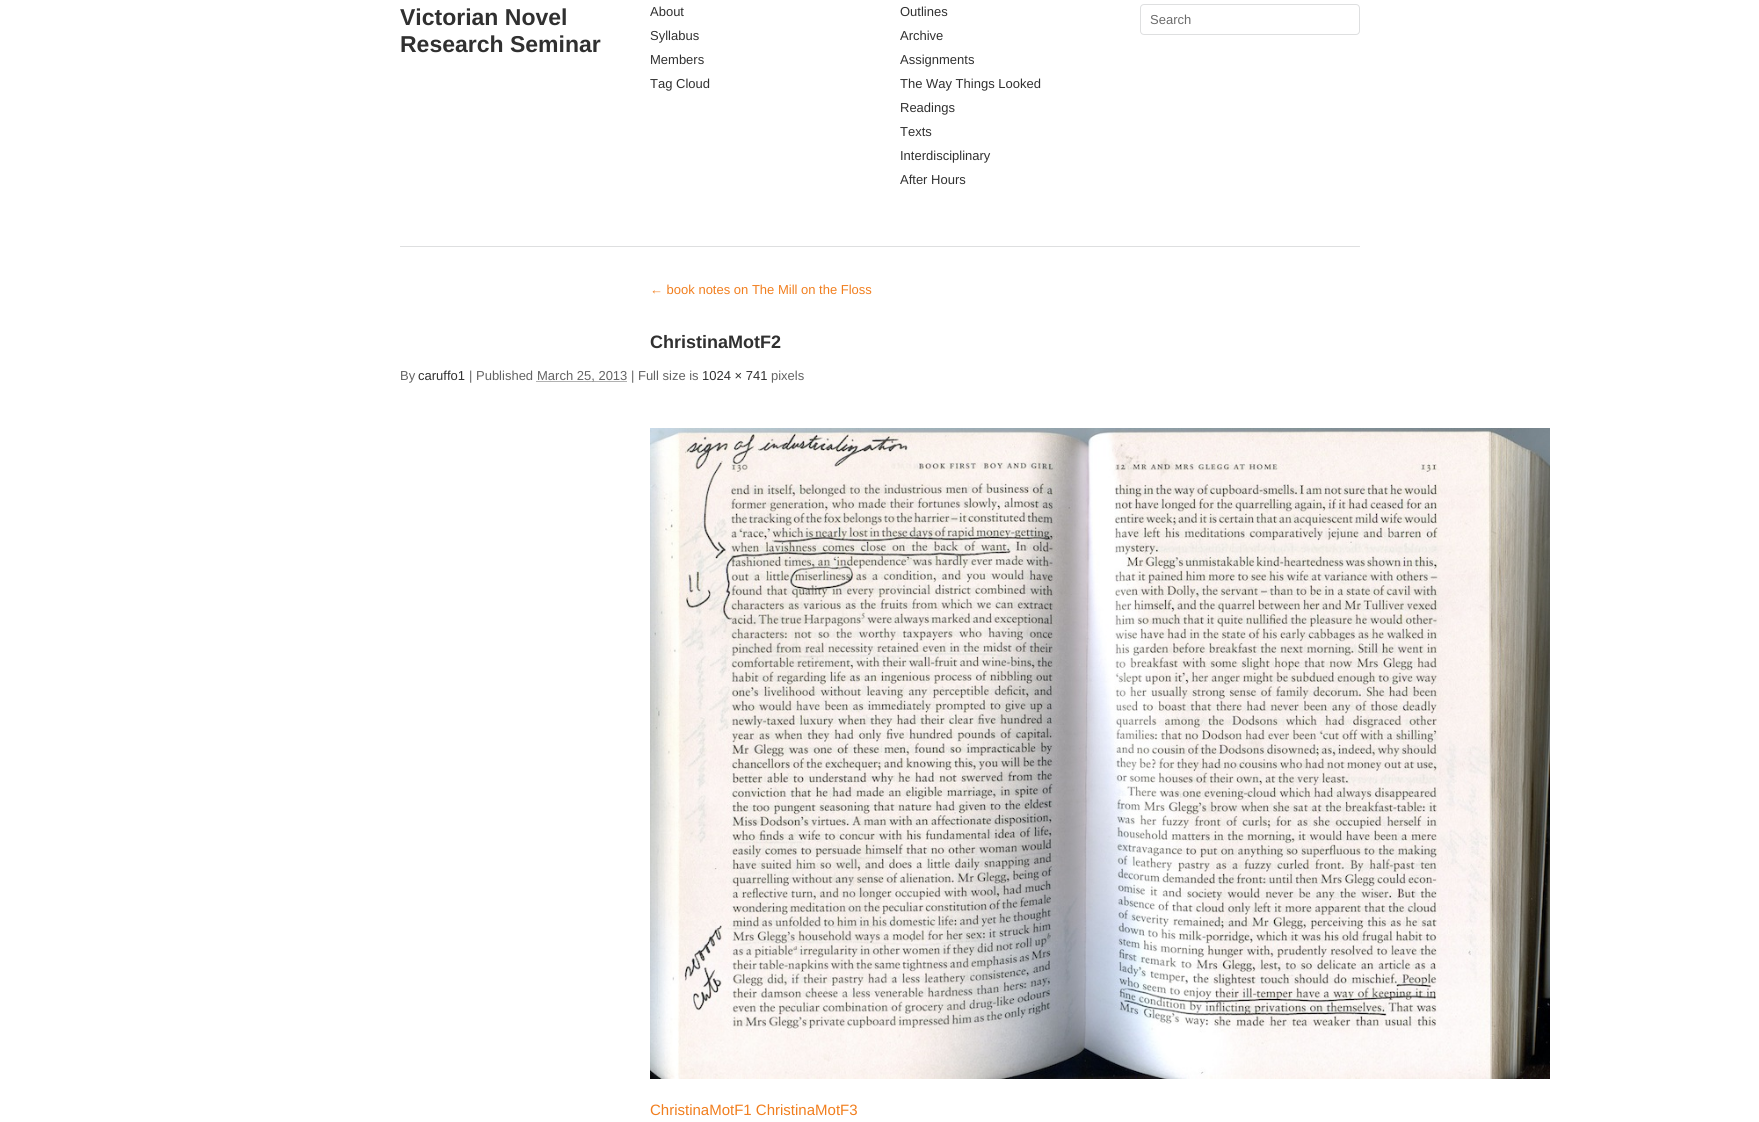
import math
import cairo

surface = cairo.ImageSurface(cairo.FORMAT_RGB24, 1759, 1122)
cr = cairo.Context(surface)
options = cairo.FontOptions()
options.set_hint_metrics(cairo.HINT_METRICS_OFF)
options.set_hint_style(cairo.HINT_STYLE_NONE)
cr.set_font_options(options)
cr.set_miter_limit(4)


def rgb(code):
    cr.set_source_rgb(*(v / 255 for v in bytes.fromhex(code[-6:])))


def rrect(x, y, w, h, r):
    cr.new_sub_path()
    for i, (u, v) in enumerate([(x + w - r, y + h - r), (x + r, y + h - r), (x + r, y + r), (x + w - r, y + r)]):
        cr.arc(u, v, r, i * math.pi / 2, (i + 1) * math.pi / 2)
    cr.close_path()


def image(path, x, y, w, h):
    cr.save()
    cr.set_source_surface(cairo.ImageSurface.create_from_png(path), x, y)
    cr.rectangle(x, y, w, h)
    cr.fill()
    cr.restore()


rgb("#ffffff")
cr.paint()
rgb("#dedfe0")
cr.rectangle(400, 246, 960, 1)
cr.fill()
rrect(1140.5, 4.5, 219, 30, 3.5)
cr.set_line_width(1)
cr.stroke()
cr.new_path()
cr.move_to(536.5, 381.5)
cr.line_to(627, 381.5)
rgb("#636363")
cr.set_dash([1, 1])
cr.stroke()
image("img/1.png", 650, 428, 900, 651)
cr.select_font_face("Liberation Sans", cairo.FONT_SLANT_NORMAL, cairo.FONT_WEIGHT_BOLD)
cr.set_font_size(23)
rgb("#303030")
cr.move_to(400, 25)
cr.show_text("Victorian Novel")
cr.move_to(400, 52)
cr.show_text("Research Seminar")
cr.select_font_face("Liberation Sans")
cr.set_font_size(13)
for x, y, s in [
    (650, 16, "About"),
    (650, 40, "Syllabus"),
    (650, 64, "Members"),
    (650, 88, "Tag Cloud"),
    (900, 16, "Outlines"),
    (900, 40, "Archive"),
    (900, 64, "Assignments"),
    (900, 88, "The Way Things Looked"),
    (900, 112, "Readings"),
    (900, 136, "Texts"),
    (900, 160, "Interdisciplinary"),
    (900, 184, "After Hours"),
]:
    cr.move_to(x, y)
    cr.show_text(s)
rgb("#6b6b6b")
cr.move_to(1150, 24)
cr.show_text("Search")
rgb("#f17e1e")
cr.move_to(650, 294)
cr.show_text("← book notes on The Mill on the Floss")
cr.select_font_face("Liberation Sans", cairo.FONT_SLANT_NORMAL, cairo.FONT_WEIGHT_BOLD)
cr.set_font_size(18)
rgb("#303030")
cr.move_to(650, 348)
cr.show_text("ChristinaMotF2")
cr.select_font_face("Liberation Sans")
cr.set_font_size(13)
rgb("#636363")
cr.move_to(400, 380)
cr.show_text("By")
rgb("#303030")
cr.move_to(418, 380)
cr.show_text("caruffo1")
rgb("#636363")
cr.move_to(469, 380)
cr.show_text("| Published")
cr.move_to(537, 380)
cr.show_text("March 25, 2013 | Full size is")
rgb("#303030")
cr.move_to(702, 380)
cr.show_text("1024 × 741")
rgb("#636363")
cr.move_to(771, 380)
cr.show_text("pixels")
cr.set_font_size(15)
rgb("#f17e1e")
cr.move_to(650, 1115)
cr.show_text("ChristinaMotF1 ChristinaMotF3")
surface.write_to_png("page.png")
